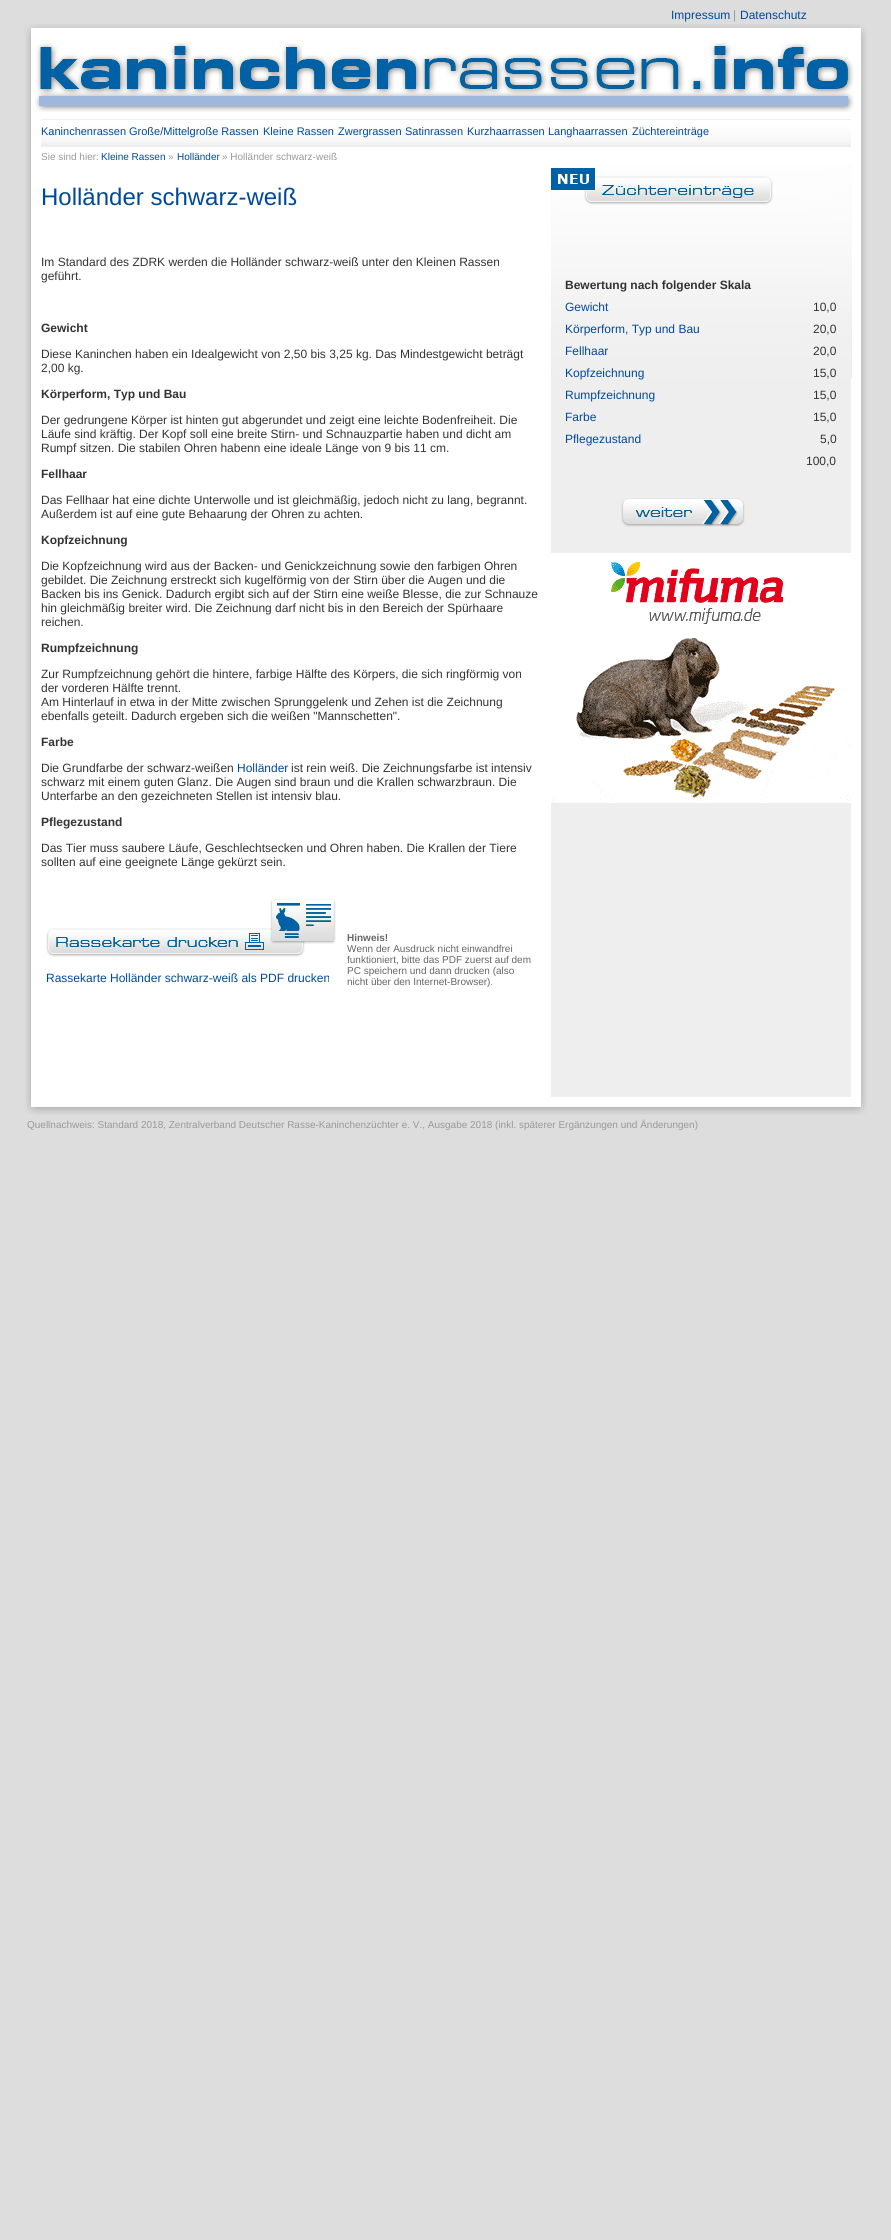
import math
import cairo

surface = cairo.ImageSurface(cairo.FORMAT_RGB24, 891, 2240)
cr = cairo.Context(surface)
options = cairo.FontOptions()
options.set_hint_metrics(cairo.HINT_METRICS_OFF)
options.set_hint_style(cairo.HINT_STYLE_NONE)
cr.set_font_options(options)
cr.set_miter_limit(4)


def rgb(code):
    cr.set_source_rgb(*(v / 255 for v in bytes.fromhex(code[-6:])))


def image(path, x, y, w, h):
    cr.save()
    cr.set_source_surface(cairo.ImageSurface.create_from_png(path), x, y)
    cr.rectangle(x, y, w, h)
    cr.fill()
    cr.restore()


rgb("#dddddd")
cr.paint()
image("img/1.png", 25, 43, 842, 1054)
rgb("#eeeeee")
cr.rectangle(551, 378, 300, 719)
cr.fill()
image("img/2.png", 35, 43, 819, 69)
image("img/3.png", 41, 119, 810, 28)
image("img/4.png", 46, 899, 290, 58)
image("img/5.png", 551, 163, 301, 215)
image("img/6.png", 551, 168, 222, 37)
image("img/7.png", 621, 498, 124, 29)
image("img/8.png", 551, 553, 300, 250)
image("img/9.png", 25, 24, 842, 19)
image("img/10.png", 25, 1097, 842, 18)
cr.select_font_face("Liberation Sans")
cr.set_font_size(12)
rgb("#00499a")
cr.move_to(671, 19)
cr.show_text("Impressum")
rgb("#999999")
cr.move_to(733, 19)
cr.show_text("|")
rgb("#00499a")
cr.move_to(740, 19)
cr.show_text("Datenschutz")
cr.set_font_size(11)
for x, y, s in [
    (41, 135, "Kaninchenrassen"),
    (129, 135, "Große/Mittelgroße Rassen"),
    (263, 135, "Kleine Rassen"),
    (338, 135, "Zwergrassen"),
    (405, 135, "Satinrassen"),
    (467, 135, "Kurzhaarrassen"),
    (548, 135, "Langhaarrassen"),
    (632, 135, "Züchtereinträge"),
]:
    cr.move_to(x, y)
    cr.show_text(s)
cr.set_font_size(10)
rgb("#999999")
cr.move_to(41, 160)
cr.show_text("Sie sind hier:")
rgb("#00499a")
cr.move_to(101, 160)
cr.show_text("Kleine Rassen")
rgb("#999999")
cr.move_to(168, 160)
cr.show_text("»")
rgb("#00499a")
cr.move_to(177, 160)
cr.show_text("Holländer")
rgb("#999999")
cr.move_to(222, 160)
cr.show_text("» Holländer schwarz-weiß")
cr.set_font_size(24)
rgb("#00499a")
cr.move_to(41, 205)
cr.show_text("Holländer schwarz-weiß")
cr.set_font_size(12)
rgb("#333333")
cr.move_to(41, 266)
cr.show_text("Im Standard des ZDRK werden die Holländer schwarz-weiß unter den Kleinen Rassen")
cr.move_to(41, 280)
cr.show_text("geführt.")
cr.select_font_face("Liberation Sans", cairo.FONT_SLANT_NORMAL, cairo.FONT_WEIGHT_BOLD)
cr.move_to(41, 332)
cr.show_text("Gewicht")
cr.select_font_face("Liberation Sans")
cr.move_to(41, 358)
cr.show_text("Diese Kaninchen haben ein Idealgewicht von 2,50 bis 3,25 kg. Das Mindestgewicht beträgt")
cr.move_to(41, 372)
cr.show_text("2,00 kg.")
cr.select_font_face("Liberation Sans", cairo.FONT_SLANT_NORMAL, cairo.FONT_WEIGHT_BOLD)
cr.move_to(41, 398)
cr.show_text("Körperform, Typ und Bau")
cr.select_font_face("Liberation Sans")
for x, y, s in [
    (41, 424, "Der gedrungene Körper ist hinten gut abgerundet und zeigt eine leichte Bodenfreiheit. Die"),
    (41, 438, "Läufe sind kräftig. Der Kopf soll eine breite Stirn- und Schnauzpartie haben und dicht am"),
    (41, 452, "Rumpf sitzen. Die stabilen Ohren habenn eine ideale Länge von 9 bis 11 cm."),
]:
    cr.move_to(x, y)
    cr.show_text(s)
cr.select_font_face("Liberation Sans", cairo.FONT_SLANT_NORMAL, cairo.FONT_WEIGHT_BOLD)
cr.move_to(41, 478)
cr.show_text("Fellhaar")
cr.select_font_face("Liberation Sans")
cr.move_to(41, 504)
cr.show_text("Das Fellhaar hat eine dichte Unterwolle und ist gleichmäßig, jedoch nicht zu lang, begrannt.")
cr.move_to(41, 518)
cr.show_text("Außerdem ist auf eine gute Behaarung der Ohren zu achten.")
cr.select_font_face("Liberation Sans", cairo.FONT_SLANT_NORMAL, cairo.FONT_WEIGHT_BOLD)
cr.move_to(41, 544)
cr.show_text("Kopfzeichnung")
cr.select_font_face("Liberation Sans")
for x, y, s in [
    (41, 570, "Die Kopfzeichnung wird aus der Backen- und Genickzeichnung sowie den farbigen Ohren"),
    (41, 584, "gebildet. Die Zeichnung erstreckt sich kugelförmig von der Stirn über die Augen und die"),
    (41, 598, "Backen bis ins Genick. Dadurch ergibt sich auf der Stirn eine weiße Blesse, die zur Schnauze"),
    (41, 612, "hin gleichmäßig breiter wird. Die Zeichnung darf nicht bis in den Bereich der Spürhaare"),
    (41, 626, "reichen."),
]:
    cr.move_to(x, y)
    cr.show_text(s)
cr.select_font_face("Liberation Sans", cairo.FONT_SLANT_NORMAL, cairo.FONT_WEIGHT_BOLD)
cr.move_to(41, 652)
cr.show_text("Rumpfzeichnung")
cr.select_font_face("Liberation Sans")
for x, y, s in [
    (41, 678, "Zur Rumpfzeichnung gehört die hintere, farbige Hälfte des Körpers, die sich ringförmig von"),
    (41, 692, "der vorderen Hälfte trennt."),
    (41, 706, "Am Hinterlauf in etwa in der Mitte zwischen Sprunggelenk und Zehen ist die Zeichnung"),
    (41, 720, "ebenfalls geteilt. Dadurch ergeben sich die weißen \"Mannschetten\"."),
]:
    cr.move_to(x, y)
    cr.show_text(s)
cr.select_font_face("Liberation Sans", cairo.FONT_SLANT_NORMAL, cairo.FONT_WEIGHT_BOLD)
cr.move_to(41, 746)
cr.show_text("Farbe")
cr.select_font_face("Liberation Sans")
cr.move_to(41, 772)
cr.show_text("Die Grundfarbe der schwarz-weißen")
rgb("#00499a")
cr.move_to(237, 772)
cr.show_text("Holländer")
rgb("#333333")
for x, y, s in [
    (291, 772, "ist rein weiß. Die Zeichnungsfarbe ist intensiv"),
    (41, 786, "schwarz mit einem guten Glanz. Die Augen sind braun und die Krallen schwarzbraun. Die"),
    (41, 800, "Unterfarbe an den gezeichneten Stellen ist intensiv blau."),
]:
    cr.move_to(x, y)
    cr.show_text(s)
cr.select_font_face("Liberation Sans", cairo.FONT_SLANT_NORMAL, cairo.FONT_WEIGHT_BOLD)
cr.move_to(41, 826)
cr.show_text("Pflegezustand")
cr.select_font_face("Liberation Sans")
cr.move_to(41, 852)
cr.show_text("Das Tier muss saubere Läufe, Geschlechtsecken und Ohren haben. Die Krallen der Tiere")
cr.move_to(41, 866)
cr.show_text("sollten auf eine geeignete Länge gekürzt sein.")
rgb("#00499a")
cr.move_to(46, 982)
cr.show_text("Rassekarte Holländer schwarz-weiß als PDF drucken")
cr.select_font_face("Liberation Sans", cairo.FONT_SLANT_NORMAL, cairo.FONT_WEIGHT_BOLD)
cr.set_font_size(10)
rgb("#666666")
cr.move_to(347, 941)
cr.show_text("Hinweis!")
cr.select_font_face("Liberation Sans")
for x, y, s in [
    (347, 952, "Wenn der Ausdruck nicht einwandfrei"),
    (347, 963, "funktioniert, bitte das PDF zuerst auf dem"),
    (347, 974, "PC speichern und dann drucken (also"),
    (347, 985, "nicht über den Internet-Browser)."),
]:
    cr.move_to(x, y)
    cr.show_text(s)
cr.select_font_face("Liberation Sans", cairo.FONT_SLANT_NORMAL, cairo.FONT_WEIGHT_BOLD)
cr.set_font_size(12)
rgb("#333333")
cr.move_to(565, 289)
cr.show_text("Bewertung nach folgender Skala")
cr.select_font_face("Liberation Sans")
rgb("#00499a")
cr.move_to(565, 311)
cr.show_text("Gewicht")
rgb("#333333")
cr.move_to(813, 311)
cr.show_text("10,0")
rgb("#00499a")
cr.move_to(565, 333)
cr.show_text("Körperform, Typ und Bau")
rgb("#333333")
cr.move_to(813, 333)
cr.show_text("20,0")
rgb("#00499a")
cr.move_to(565, 355)
cr.show_text("Fellhaar")
rgb("#333333")
cr.move_to(813, 355)
cr.show_text("20,0")
rgb("#00499a")
cr.move_to(565, 377)
cr.show_text("Kopfzeichnung")
rgb("#333333")
cr.move_to(813, 377)
cr.show_text("15,0")
rgb("#00499a")
cr.move_to(565, 399)
cr.show_text("Rumpfzeichnung")
rgb("#333333")
cr.move_to(813, 399)
cr.show_text("15,0")
rgb("#00499a")
cr.move_to(565, 421)
cr.show_text("Farbe")
rgb("#333333")
cr.move_to(813, 421)
cr.show_text("15,0")
rgb("#00499a")
cr.move_to(565, 443)
cr.show_text("Pflegezustand")
rgb("#333333")
cr.move_to(820, 443)
cr.show_text("5,0")
cr.move_to(806, 465)
cr.show_text("100,0")
cr.set_font_size(10)
rgb("#999999")
cr.move_to(27, 1128)
cr.show_text("Quellnachweis: Standard 2018, Zentralverband Deutscher Rasse-Kaninchenzüchter e. V., Ausgabe 2018 (inkl. späterer Ergänzungen und Änderungen)")
surface.write_to_png("page.png")
